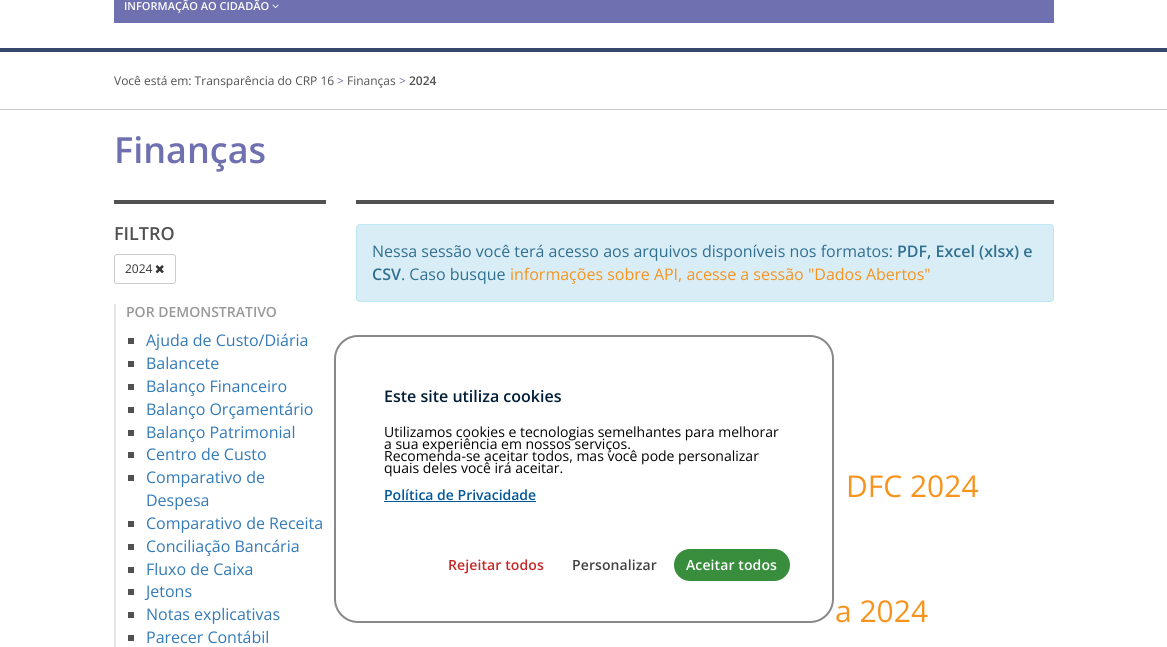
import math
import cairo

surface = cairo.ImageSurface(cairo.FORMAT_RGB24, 1167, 647)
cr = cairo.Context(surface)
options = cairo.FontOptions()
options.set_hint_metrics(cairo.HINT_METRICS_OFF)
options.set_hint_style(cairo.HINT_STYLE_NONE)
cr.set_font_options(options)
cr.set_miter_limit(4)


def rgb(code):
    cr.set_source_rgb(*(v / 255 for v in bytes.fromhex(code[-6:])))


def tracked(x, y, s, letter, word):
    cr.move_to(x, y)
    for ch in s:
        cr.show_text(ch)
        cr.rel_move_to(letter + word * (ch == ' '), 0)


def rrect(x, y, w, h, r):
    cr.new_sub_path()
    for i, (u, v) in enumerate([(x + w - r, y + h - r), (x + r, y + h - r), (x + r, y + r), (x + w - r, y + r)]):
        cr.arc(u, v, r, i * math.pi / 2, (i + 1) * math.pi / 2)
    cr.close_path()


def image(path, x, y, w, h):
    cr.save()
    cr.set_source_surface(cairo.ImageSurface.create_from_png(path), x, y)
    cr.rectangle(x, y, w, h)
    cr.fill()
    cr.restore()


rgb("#ffffff")
cr.paint()
rgb("#38476c")
cr.rectangle(0, 48, 1167, 4)
cr.fill()
rgb("#6f70b0")
cr.rectangle(114, 0, 940, 23)
cr.fill()
image("img/1.png", 272, 4, 7, 5)
rgb("#cccccc")
cr.rectangle(0, 109, 1167, 1)
cr.fill()
rgb("#515151")
cr.rectangle(114, 200, 212, 4)
cr.fill()
rrect(114.5, 254.5, 61, 29, 2.5)
rgb("#cccccc")
cr.set_line_width(1)
cr.stroke()
image("img/2.png", 155, 265, 9, 9)
for x, y, w, h, color in [
    (114, 304, 2, 343, "#e5e5e5"),
    (128, 338, 6, 6, "#515151"),
    (128, 361, 6, 6, "#515151"),
    (128, 384, 6, 6, "#515151"),
    (128, 407, 6, 6, "#515151"),
    (128, 430, 6, 6, "#515151"),
    (128, 452, 6, 6, "#515151"),
    (128, 475, 6, 6, "#515151"),
    (128, 521, 6, 6, "#515151"),
    (128, 544, 6, 6, "#515151"),
    (128, 567, 6, 6, "#515151"),
    (128, 589, 6, 6, "#515151"),
    (128, 612, 6, 6, "#515151"),
    (128, 635, 6, 6, "#515151"),
    (356, 200, 698, 4, "#515151"),
]:
    rgb(color)
    cr.rectangle(x, y, w, h)
    cr.fill()
rgb("#d9edf7")
rrect(356.5, 224.5, 697, 77, 3.5)
cr.fill_preserve()
rgb("#bce8f1")
cr.stroke()
rrect(335, 336, 498, 286, 23)
rgb("#888888")
cr.set_line_width(2)
cr.stroke()
rgb("#01579b")
cr.rectangle(384, 501, 152, 1)
cr.fill()
rgb("#388e3c")
rrect(674, 549, 116, 32, 16)
cr.fill()
cr.select_font_face("Open Sans SemiBold")
cr.set_font_size(11)
rgb("#ffffff")
cr.move_to(124, 10)
cr.show_text("INFORMAÇÃO AO CIDADÃO")
cr.select_font_face("Open Sans")
cr.set_font_size(12)
rgb("#515151")
cr.move_to(114, 85)
cr.show_text("Você está em: Transparência do CRP 16")
rgb("#6f70b0")
cr.move_to(337, 85)
cr.show_text(">")
rgb("#515151")
cr.move_to(347, 85)
cr.show_text("Finanças")
rgb("#6f70b0")
cr.move_to(399, 85)
cr.show_text(">")
cr.select_font_face("Open Sans SemiBold")
rgb("#515151")
cr.move_to(409, 85)
cr.show_text("2024")
cr.set_font_size(36)
rgb("#6f70b0")
cr.move_to(114, 163)
cr.show_text("Finanças")
cr.set_font_size(18)
rgb("#515151")
cr.move_to(114, 240)
cr.show_text("FILTRO")
cr.select_font_face("Open Sans")
cr.set_font_size(12)
rgb("#333333")
cr.move_to(125, 273)
cr.show_text("2024")
cr.select_font_face("Open Sans SemiBold")
cr.set_font_size(14)
rgb("#999999")
cr.move_to(126, 317)
cr.show_text("POR DEMONSTRATIVO")
cr.select_font_face("Open Sans")
cr.set_font_size(16)
rgb("#337ab7")
for x, y, s in [
    (146, 346, "Ajuda de Custo/Diária"),
    (146, 369, "Balancete"),
    (146, 392, "Balanço Financeiro"),
    (146, 415, "Balanço Orçamentário"),
    (146, 438, "Balanço Patrimonial"),
    (146, 460, "Centro de Custo"),
    (146, 483, "Comparativo de"),
    (146, 506, "Despesa"),
    (146, 529, "Comparativo de Receita"),
    (146, 552, "Conciliação Bancária"),
    (146, 575, "Fluxo de Caixa"),
    (146, 597, "Jetons"),
    (146, 620, "Notas explicativas"),
    (146, 643, "Parecer Contábil"),
]:
    cr.move_to(x, y)
    cr.show_text(s)
rgb("#31708f")
cr.move_to(372, 257)
cr.show_text("Nessa sessão você terá acesso aos arquivos disponíveis nos formatos:")
cr.select_font_face("Open Sans SemiBold")
cr.move_to(897, 257)
cr.show_text("PDF, Excel (xlsx) e")
cr.move_to(372, 280)
cr.show_text("CSV")
cr.select_font_face("Open Sans")
cr.move_to(401, 280)
cr.show_text(". Caso busque")
rgb("#f7941e")
cr.move_to(510, 280)
cr.show_text("informações sobre API, acesse a sessão \"Dados Abertos\"")
cr.set_font_size(30)
cr.move_to(846, 497)
cr.show_text("DFC 2024")
cr.move_to(835, 622)
cr.show_text("a 2024")
cr.select_font_face("Open Sans SemiBold")
cr.set_font_size(16)
rgb("#001d35")
cr.move_to(384, 402)
cr.show_text("Este site utiliza cookies")
cr.select_font_face("Open Sans")
cr.set_font_size(14)
rgb("#000000")
for x, y, s in [
    (384, 437, "Utilizamos cookies e tecnologias semelhantes para melhorar"),
    (384, 449, "a sua experiência em nossos serviços."),
    (384, 461, "Recomenda-se aceitar todos, mas você pode personalizar"),
    (384, 473, "quais deles você irá aceitar."),
]:
    cr.move_to(x, y)
    cr.show_text(s)
cr.select_font_face("Open Sans SemiBold")
rgb("#01579b")
cr.move_to(384, 500)
cr.show_text("Política de Privacidade")
rgb("#c62828")
tracked(448, 570, "Rejeitar todos", 0.1, 0)
rgb("#424242")
tracked(572, 570, "Personalizar", 0.1, 0)
rgb("#ffffff")
tracked(686, 570, "Aceitar todos", 0.1, 0)
surface.write_to_png("page.png")
